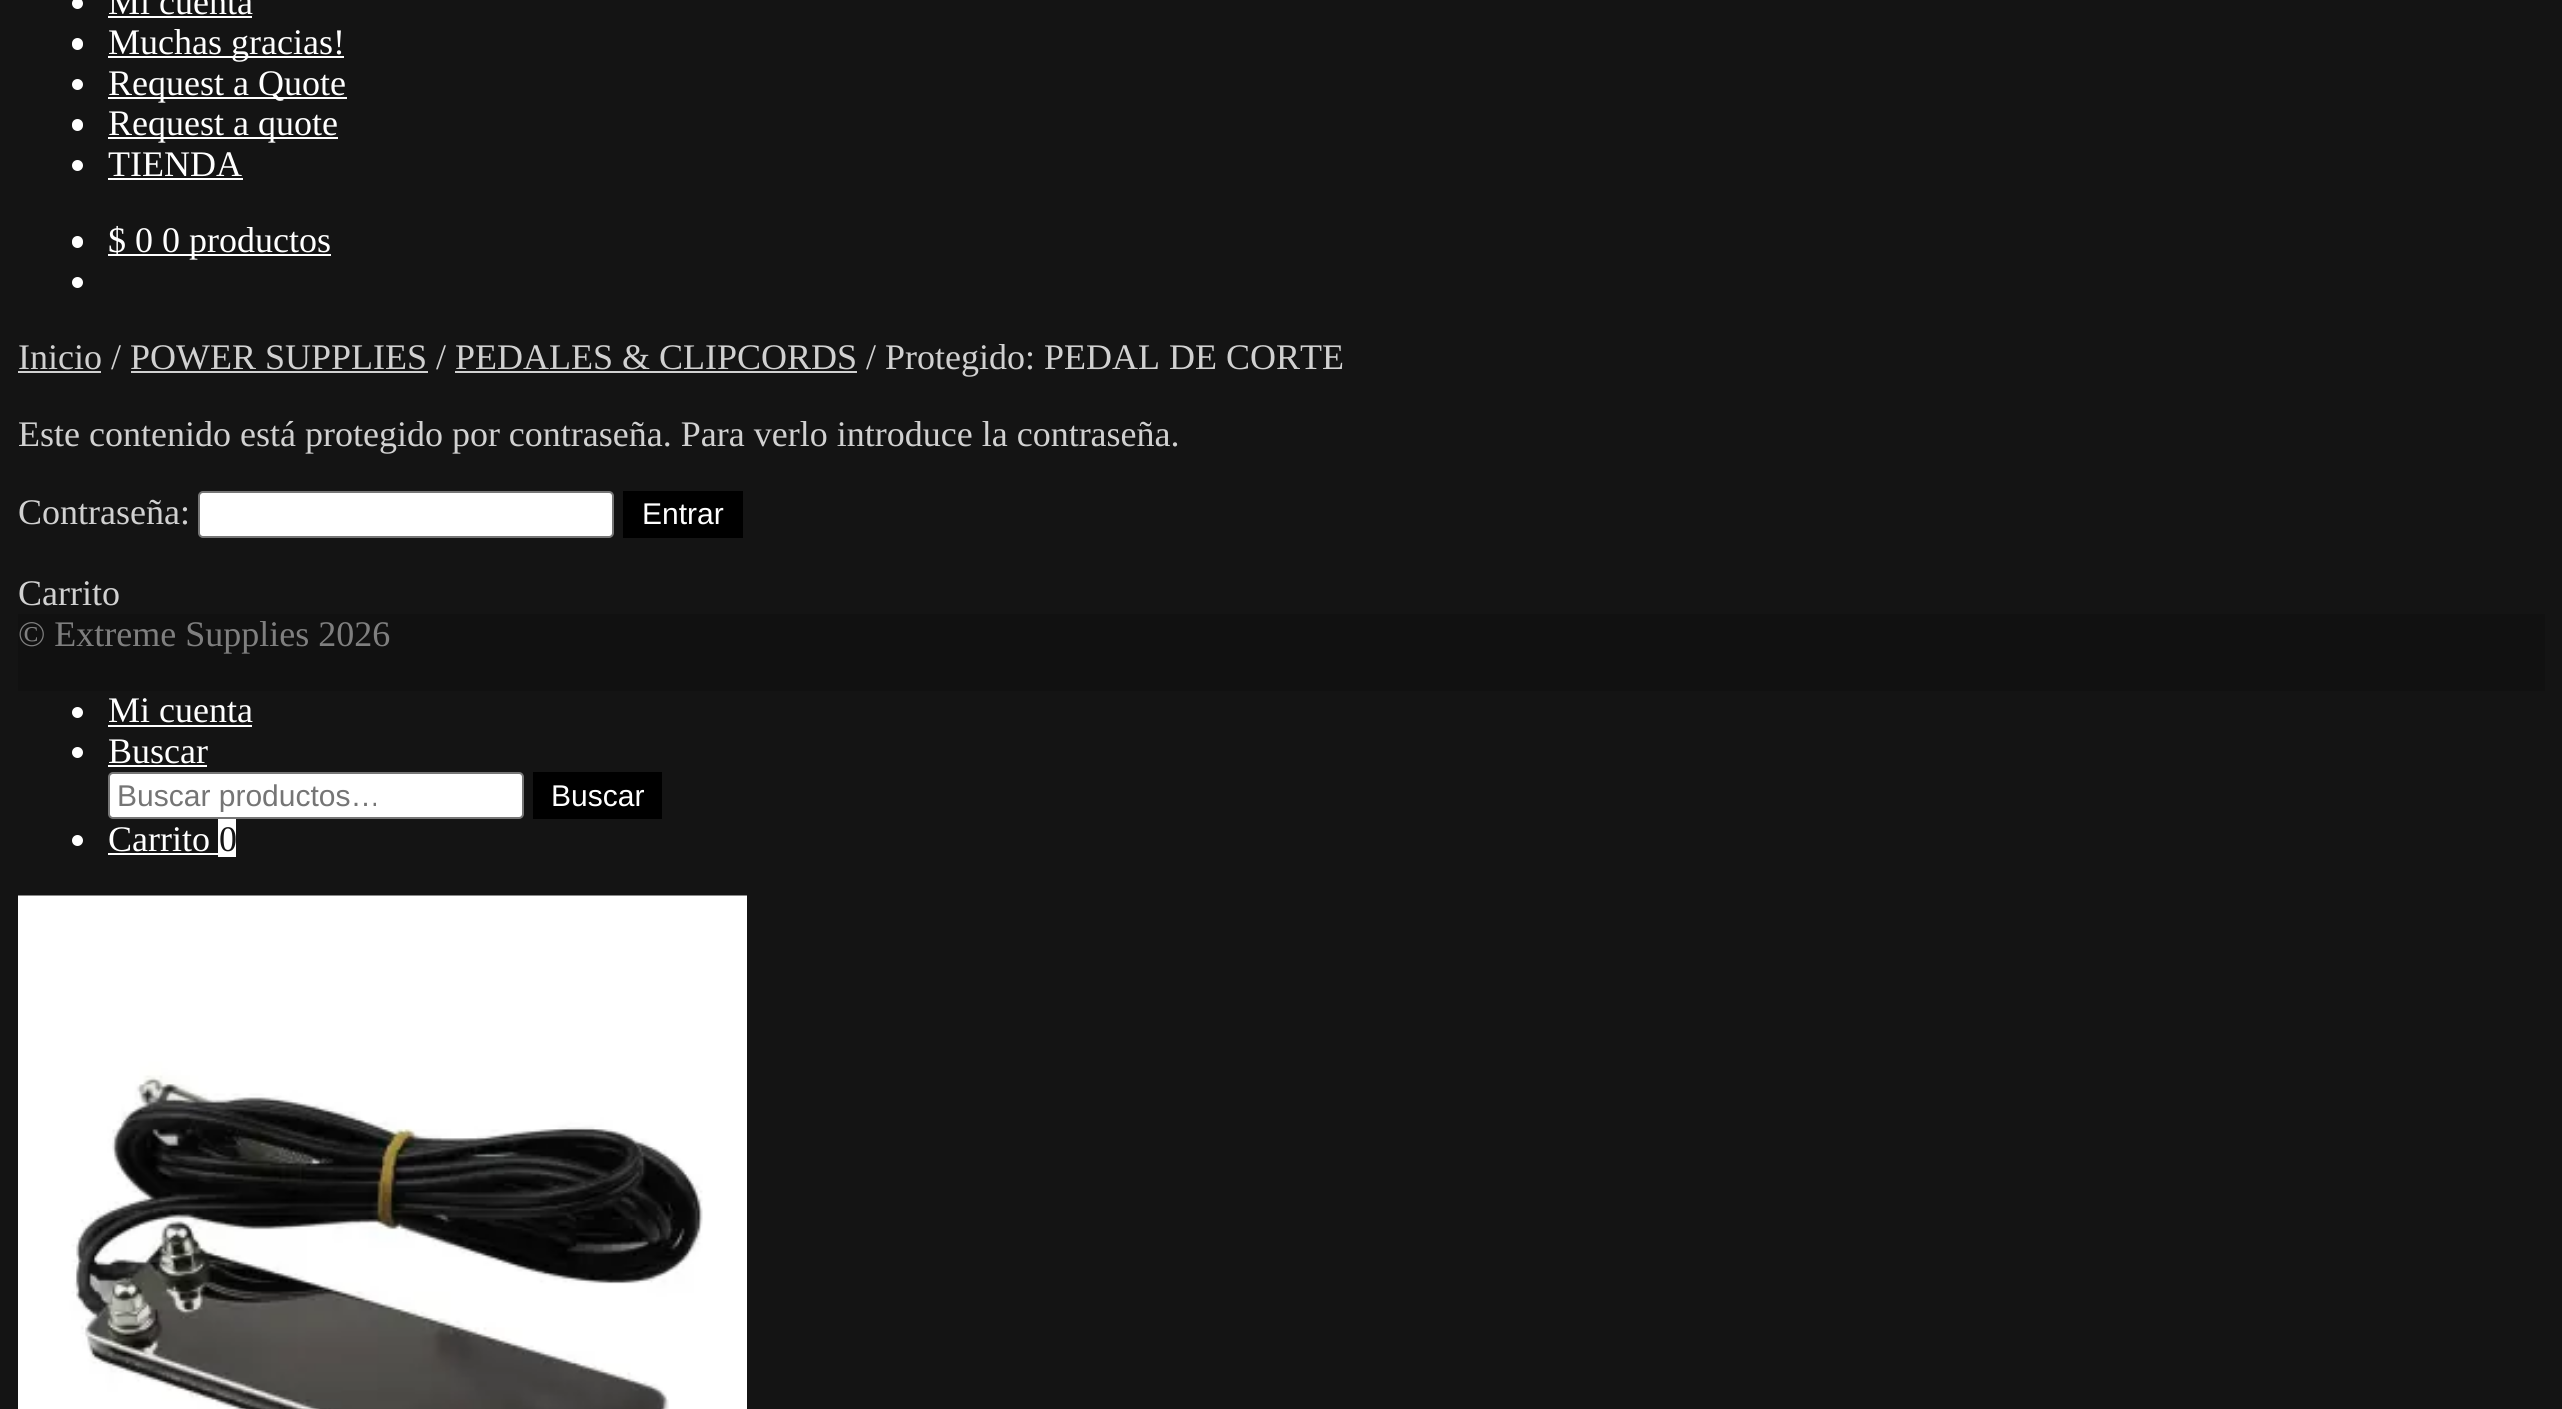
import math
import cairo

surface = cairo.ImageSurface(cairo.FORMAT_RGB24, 2562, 1409)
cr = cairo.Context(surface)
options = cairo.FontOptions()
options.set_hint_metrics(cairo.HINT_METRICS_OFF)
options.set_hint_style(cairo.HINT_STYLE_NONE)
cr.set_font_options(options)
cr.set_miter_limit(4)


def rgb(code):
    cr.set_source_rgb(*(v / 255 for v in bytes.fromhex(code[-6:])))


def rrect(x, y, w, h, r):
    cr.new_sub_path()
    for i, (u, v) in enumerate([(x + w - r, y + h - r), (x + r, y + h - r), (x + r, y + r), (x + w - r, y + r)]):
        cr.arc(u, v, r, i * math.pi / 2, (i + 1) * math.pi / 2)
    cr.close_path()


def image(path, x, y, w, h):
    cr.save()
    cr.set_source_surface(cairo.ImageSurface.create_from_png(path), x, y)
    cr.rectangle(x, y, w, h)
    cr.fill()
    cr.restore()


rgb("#141414")
cr.paint()
rgb("#ffffff")
cr.arc(77.5, 3.5, 5.5, 0, 2 * math.pi)
cr.fill()
cr.rectangle(108, 16, 144, 2)
cr.fill()
rrect(72, 38, 11, 12, 5.5)
cr.fill()
cr.rectangle(108, 56, 236, 2)
cr.fill()
cr.arc(77.5, 84.5, 5.5, 0, 2 * math.pi)
cr.fill()
cr.rectangle(108, 97, 239, 2)
cr.fill()
rrect(72, 119, 11, 12, 5.5)
cr.fill()
cr.rectangle(108, 137, 230, 2)
cr.fill()
cr.arc(77.5, 165.5, 5.5, 0, 2 * math.pi)
cr.fill()
cr.rectangle(108, 178, 135, 2)
cr.fill()
rrect(72, 236, 11, 12, 5.5)
cr.fill()
cr.rectangle(108, 254, 223, 2)
cr.fill()
cr.arc(77.5, 282.5, 5.5, 0, 2 * math.pi)
cr.fill()
for x, y, w, h, color in [
    (18, 371, 83, 2, "#d1d1d1"),
    (131, 371, 297, 2, "#d1d1d1"),
    (455, 371, 402, 2, "#d1d1d1"),
]:
    rgb(color)
    cr.rectangle(x, y, w, h)
    cr.fill()
rgb("#ffffff")
rrect(199, 492, 414, 45, 4)
cr.fill_preserve()
rgb("#767676")
cr.stroke()
rgb("#000000")
cr.rectangle(623, 491, 120, 47)
cr.fill()
rgb("#111111")
cr.rectangle(18, 614, 2527, 77)
cr.fill()
rgb("#ffffff")
cr.arc(77.5, 712.5, 5.5, 0, 2 * math.pi)
cr.fill()
cr.rectangle(108, 725, 144, 2)
cr.fill()
cr.arc(77.5, 752.5, 5.5, 0, 2 * math.pi)
cr.fill()
cr.rectangle(108, 765, 99, 2)
cr.fill()
rrect(109, 773, 414, 45, 4)
cr.fill_preserve()
rgb("#767676")
cr.stroke()
rgb("#000000")
cr.rectangle(533, 772, 129, 47)
cr.fill()
rgb("#ffffff")
cr.arc(77.5, 840.5, 5.5, 0, 2 * math.pi)
cr.fill()
cr.rectangle(108, 853, 110, 2)
cr.fill()
cr.rectangle(218, 819, 18, 38)
cr.fill()
image("img/1.png", 18, 895, 729, 514)
cr.select_font_face("Liberation Serif")
cr.set_font_size(36)
for x, y, s in [
    (108, 14, "Mi cuenta"),
    (108, 54, "Muchas gracias!"),
    (108, 95, "Request a Quote"),
    (108, 135, "Request a quote"),
    (108, 176, "TIENDA"),
    (108, 252, "$ 0 0 productos"),
]:
    cr.move_to(x, y)
    cr.show_text(s)
rgb("#d1d1d1")
for x, y, s in [
    (18, 369, "Inicio"),
    (111, 369, "/"),
    (130, 369, "POWER SUPPLIES"),
    (436, 369, "/"),
    (455, 369, "PEDALES & CLIPCORDS"),
    (866, 369, "/ Protegido: PEDAL DE CORTE"),
    (18, 446, "Este contenido está protegido por contraseña. Para verlo introduce la contraseña."),
    (18, 524, "Contraseña:"),
]:
    cr.move_to(x, y)
    cr.show_text(s)
cr.select_font_face("Liberation Sans")
cr.set_font_size(30)
rgb("#ffffff")
cr.move_to(642, 524)
cr.show_text("Entrar")
cr.select_font_face("Liberation Serif")
cr.set_font_size(36)
rgb("#d1d1d1")
cr.move_to(18, 605)
cr.show_text("Carrito")
rgb("#7f7f7f")
cr.move_to(18, 646)
cr.show_text("© Extreme Supplies 2026")
rgb("#ffffff")
cr.move_to(108, 722)
cr.show_text("Mi cuenta")
cr.move_to(108, 763)
cr.show_text("Buscar")
cr.save()
cr.rectangle(117, 779, 369, 33)
cr.clip()
cr.select_font_face("Liberation Sans")
cr.set_font_size(30)
rgb("#757575")
cr.move_to(117, 806)
cr.show_text("Buscar productos…")
cr.restore()
cr.select_font_face("Liberation Sans")
cr.set_font_size(30)
cr.move_to(551, 806)
cr.show_text("Buscar")
cr.select_font_face("Liberation Serif")
cr.set_font_size(36)
cr.move_to(108, 851)
cr.show_text("Carrito")
rgb("#141414")
cr.move_to(219, 851)
cr.show_text("0")
surface.write_to_png("page.png")
